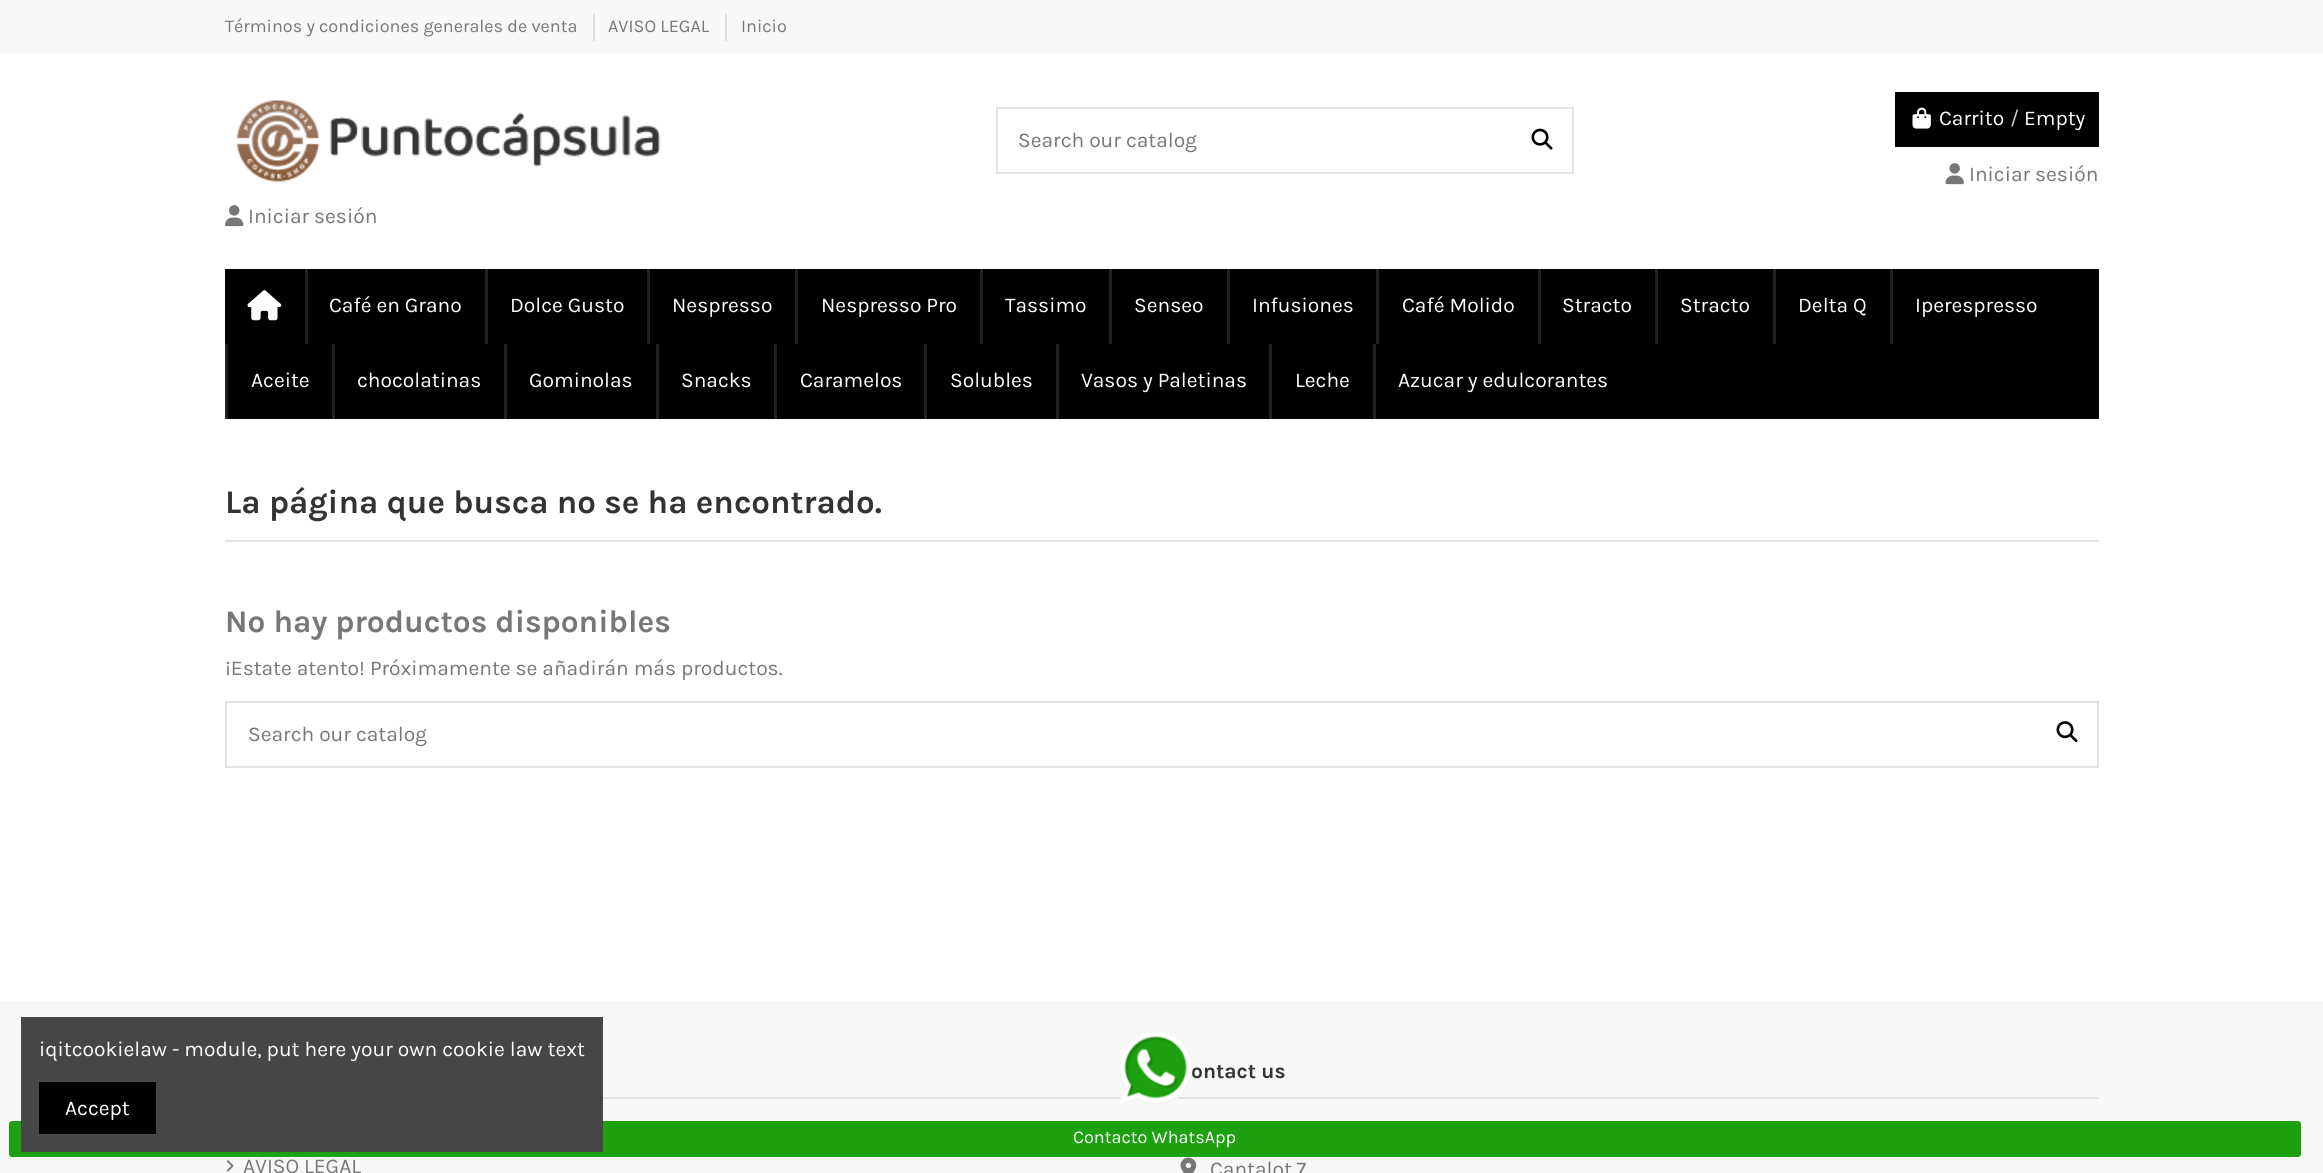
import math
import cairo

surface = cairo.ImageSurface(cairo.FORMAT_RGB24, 2323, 1173)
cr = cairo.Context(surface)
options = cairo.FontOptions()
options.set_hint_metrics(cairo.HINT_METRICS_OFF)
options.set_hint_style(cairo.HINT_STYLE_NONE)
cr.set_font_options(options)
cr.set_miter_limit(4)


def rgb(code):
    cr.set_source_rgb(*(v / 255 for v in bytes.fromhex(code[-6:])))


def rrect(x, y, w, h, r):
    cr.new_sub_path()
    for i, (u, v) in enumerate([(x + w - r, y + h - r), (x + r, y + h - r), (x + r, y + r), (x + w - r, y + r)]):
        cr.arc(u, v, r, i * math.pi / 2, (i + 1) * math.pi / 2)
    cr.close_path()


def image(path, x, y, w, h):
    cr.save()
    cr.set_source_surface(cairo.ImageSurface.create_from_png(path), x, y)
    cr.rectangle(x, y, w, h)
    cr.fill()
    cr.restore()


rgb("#ffffff")
cr.paint()
for x, y, w, h, color in [
    (0, 0, 2323, 54, "#f8f8f8"),
    (593, 14, 2, 27, "#dedede"),
    (725, 14, 2, 27, "#dedede"),
]:
    rgb(color)
    cr.rectangle(x, y, w, h)
    cr.fill()
image("img/1.png", 236, 100, 425, 82)
cr.rectangle(997, 108, 576, 65)
rgb("#e3e3e3")
cr.stroke()
image("img/2.png", 1531, 128, 22, 22)
rgb("#000000")
cr.rectangle(1895, 92, 204, 55)
cr.fill()
image("img/3.png", 1912, 107, 19, 22)
image("img/4.png", 1945, 163, 19, 22)
image("img/5.png", 225, 205, 19, 22)
cr.rectangle(225, 269, 1874, 150)
cr.fill()
image("img/6.png", 247, 290, 35, 31)
for x, y, w, h, color in [
    (305, 269, 3, 75, "#212121"),
    (485, 269, 3, 75, "#212121"),
    (647, 269, 3, 75, "#212121"),
    (795, 269, 3, 75, "#212121"),
    (980, 269, 3, 75, "#212121"),
    (1109, 269, 3, 75, "#212121"),
    (1227, 269, 3, 75, "#212121"),
    (1376, 269, 3, 75, "#212121"),
    (1538, 269, 3, 75, "#212121"),
    (1655, 269, 3, 75, "#212121"),
    (1773, 269, 3, 75, "#212121"),
    (1890, 269, 3, 75, "#212121"),
    (225, 344, 3, 75, "#212121"),
    (332, 344, 3, 75, "#212121"),
    (504, 344, 3, 75, "#212121"),
    (656, 344, 3, 75, "#212121"),
    (774, 344, 3, 75, "#212121"),
    (924, 344, 3, 75, "#212121"),
    (1056, 344, 3, 75, "#212121"),
    (1269, 344, 3, 75, "#212121"),
    (1373, 344, 3, 75, "#212121"),
    (225, 540, 1874, 2, "#e3e3e3"),
]:
    rgb(color)
    cr.rectangle(x, y, w, h)
    cr.fill()
cr.rectangle(226, 702, 1872, 65)
cr.stroke()
image("img/7.png", 2056, 721, 22, 22)
rgb("#f8f8f8")
cr.rectangle(0, 1001, 2323, 172)
cr.fill()
rgb("#1da110")
rrect(9, 1121, 2292, 36, 3)
cr.fill()
rgb("#e3e3e3")
cr.rectangle(1178, 1097, 921, 2)
cr.fill()
image("img/9.png", 1180, 1157, 17, 16)
cr.rectangle(603, 1097, 543, 2)
cr.fill()
image("img/10.png", 226, 1160, 8, 12)
rgb("#464646")
cr.rectangle(21, 1017, 582, 135)
cr.fill()
rgb("#000000")
cr.rectangle(39, 1082, 117, 52)
cr.fill()
cr.select_font_face("Karla")
cr.set_font_size(18)
rgb("#777777")
for x, y, s in [
    (225, 32, "Términos y condiciones generales de venta"),
    (608, 32, "AVISO LEGAL"),
    (741, 32, "Inicio"),
]:
    cr.move_to(x, y)
    cr.show_text(s)
cr.set_font_size(21)
cr.move_to(1018, 147)
cr.show_text("Search our catalog")
rgb("#ffffff")
cr.move_to(1939, 125)
cr.show_text("Carrito")
rgb("#cccccc")
cr.move_to(2010, 125)
cr.show_text("/")
rgb("#ffffff")
cr.move_to(2024, 125)
cr.show_text("Empty")
rgb("#777777")
cr.move_to(1969, 181)
cr.show_text("Iniciar sesión")
cr.move_to(248, 223)
cr.show_text("Iniciar sesión")
rgb("#ffffff")
for x, y, s in [
    (329, 312, "Café en Grano"),
    (510, 312, "Dolce Gusto"),
    (672, 312, "Nespresso"),
    (821, 312, "Nespresso Pro"),
    (1005, 312, "Tassimo"),
    (1134, 312, "Senseo"),
    (1252, 312, "Infusiones"),
    (1402, 312, "Café Molido"),
    (1562, 312, "Stracto"),
    (1680, 312, "Stracto"),
    (1798, 312, "Delta Q"),
    (1915, 312, "Iperespresso"),
    (251, 387, "Aceite"),
    (357, 387, "chocolatinas"),
    (529, 387, "Gominolas"),
    (681, 387, "Snacks"),
    (800, 387, "Caramelos"),
    (950, 387, "Solubles"),
    (1081, 387, "Vasos y Paletinas"),
    (1295, 387, "Leche"),
    (1398, 387, "Azucar y edulcorantes"),
]:
    cr.move_to(x, y)
    cr.show_text(s)
cr.select_font_face("Karla", cairo.FONT_SLANT_NORMAL, cairo.FONT_WEIGHT_BOLD)
cr.set_font_size(33)
rgb("#333333")
cr.move_to(225, 513)
cr.show_text("La página que busca no se ha encontrado.")
cr.set_font_size(31.5)
rgb("#777777")
cr.move_to(225, 632)
cr.show_text("No hay productos disponibles")
cr.select_font_face("Karla")
cr.set_font_size(21)
cr.move_to(225, 675)
cr.show_text("¡Estate atento! Próximamente se añadirán más productos.")
cr.move_to(248, 741)
cr.show_text("Search our catalog")
cr.set_font_size(18)
rgb("#ffffff")
cr.move_to(1073, 1143)
cr.show_text("Contacto WhatsApp")
cr.select_font_face("Karla", cairo.FONT_SLANT_NORMAL, cairo.FONT_WEIGHT_BOLD)
cr.set_font_size(21)
rgb("#333333")
cr.move_to(1191, 1078)
cr.show_text("ontact us")
image("img/8.png", 1117, 1030, 76, 76)
cr.select_font_face("Karla")
rgb("#777777")
cr.move_to(1210, 1176)
cr.show_text("Cantalot,7")
cr.move_to(243, 1173)
cr.show_text("AVISO LEGAL")
rgb("#ffffff")
cr.move_to(39, 1056)
cr.show_text("iqitcookielaw - module, put here your own cookie law text")
cr.move_to(65, 1115)
cr.show_text("Accept")
surface.write_to_png("page.png")
